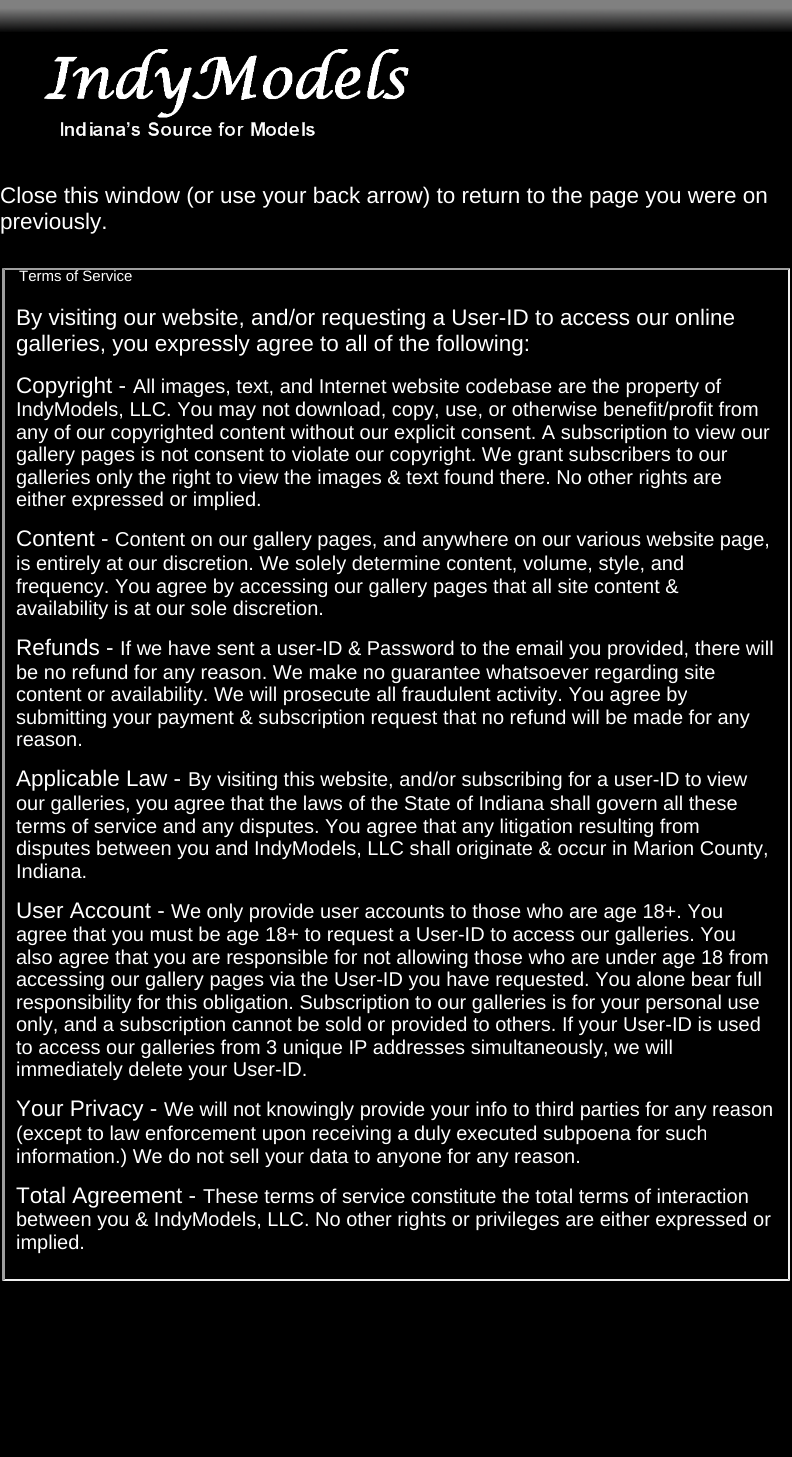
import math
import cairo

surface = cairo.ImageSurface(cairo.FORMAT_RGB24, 792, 1457)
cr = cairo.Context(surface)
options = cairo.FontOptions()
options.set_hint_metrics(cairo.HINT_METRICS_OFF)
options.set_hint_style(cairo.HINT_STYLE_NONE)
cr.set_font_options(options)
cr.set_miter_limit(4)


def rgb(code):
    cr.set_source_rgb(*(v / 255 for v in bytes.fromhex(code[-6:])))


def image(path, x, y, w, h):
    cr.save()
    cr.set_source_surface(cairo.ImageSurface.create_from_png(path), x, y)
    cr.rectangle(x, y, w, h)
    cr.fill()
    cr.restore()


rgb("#000000")
cr.paint()
image("img/1.png", 0, 0, 792, 32)
image("img/2.png", 44, 49, 365, 87)
rgb("#9f9f9f")
cr.new_path()
cr.move_to(2, 268)
cr.line_to(790, 268)
cr.line_to(788, 270)
cr.line_to(5, 270)
cr.close_path()
cr.fill()
rgb("#efefef")
cr.new_path()
cr.move_to(790, 268)
cr.line_to(790, 1281)
cr.line_to(788, 1279)
cr.line_to(788, 270)
cr.close_path()
cr.fill()
cr.new_path()
cr.move_to(790, 1281)
cr.line_to(2, 1281)
cr.line_to(5, 1279)
cr.line_to(788, 1279)
cr.close_path()
cr.fill()
rgb("#9f9f9f")
cr.new_path()
cr.move_to(2, 1281)
cr.line_to(2, 268)
cr.line_to(5, 270)
cr.line_to(5, 1279)
cr.close_path()
cr.fill()
cr.select_font_face("Liberation Sans")
cr.set_font_size(22.5)
rgb("#ffffff")
cr.move_to(0, 203)
cr.show_text("Close this window (or use your back arrow) to return to the page you were on")
cr.move_to(0, 229)
cr.show_text("previously.")
cr.set_font_size(15)
cr.move_to(19, 281)
cr.show_text("Terms of Service")
cr.set_font_size(22.5)
for x, y, s in [
    (16, 325, "By visiting our website, and/or requesting a User-ID to access our online"),
    (16, 351, "galleries, you expressly agree to all of the following:"),
    (16, 393, "Copyright -"),
]:
    cr.move_to(x, y)
    cr.show_text(s)
cr.set_font_size(20)
for x, y, s in [
    (133, 393, "All images, text, and Internet website codebase are the property of"),
    (16, 416, "IndyModels, LLC. You may not download, copy, use, or otherwise benefit/profit from"),
    (16, 439, "any of our copyrighted content without our explicit consent. A subscription to view our"),
    (16, 461, "gallery pages is not consent to violate our copyright. We grant subscribers to our"),
    (16, 484, "galleries only the right to view the images & text found there. No other rights are"),
    (16, 506, "either expressed or implied."),
]:
    cr.move_to(x, y)
    cr.show_text(s)
cr.set_font_size(22.5)
cr.move_to(16, 546)
cr.show_text("Content -")
cr.set_font_size(20)
for x, y, s in [
    (115, 546, "Content on our gallery pages, and anywhere on our various website page,"),
    (16, 570, "is entirely at our discretion. We solely determine content, volume, style, and"),
    (16, 593, "frequency. You agree by accessing our gallery pages that all site content &"),
    (16, 615, "availability is at our sole discretion."),
]:
    cr.move_to(x, y)
    cr.show_text(s)
cr.set_font_size(22.5)
cr.move_to(16, 655)
cr.show_text("Refunds -")
cr.set_font_size(20)
for x, y, s in [
    (120, 655, "If we have sent a user-ID & Password to the email you provided, there will"),
    (16, 679, "be no refund for any reason. We make no guarantee whatsoever regarding site"),
    (16, 701, "content or availability. We will prosecute all fraudulent activity. You agree by"),
    (16, 724, "submitting your payment & subscription request that no refund will be made for any"),
    (16, 746, "reason."),
]:
    cr.move_to(x, y)
    cr.show_text(s)
cr.set_font_size(22.5)
cr.move_to(16, 786)
cr.show_text("Applicable Law -")
cr.set_font_size(20)
for x, y, s in [
    (188, 786, "By visiting this website, and/or subscribing for a user-ID to view"),
    (16, 810, "our galleries, you agree that the laws of the State of Indiana shall govern all these"),
    (16, 833, "terms of service and any disputes. You agree that any litigation resulting from"),
    (16, 855, "disputes between you and IndyModels, LLC shall originate & occur in Marion County,"),
    (16, 878, "Indiana."),
]:
    cr.move_to(x, y)
    cr.show_text(s)
cr.set_font_size(22.5)
cr.move_to(16, 918)
cr.show_text("User Account -")
cr.set_font_size(20)
for x, y, s in [
    (171, 918, "We only provide user accounts to those who are age 18+. You"),
    (16, 941, "agree that you must be age 18+ to request a User-ID to access our galleries. You"),
    (16, 964, "also agree that you are responsible for not allowing those who are under age 18 from"),
    (16, 986, "accessing our gallery pages via the User-ID you have requested. You alone bear full"),
    (16, 1009, "responsibility for this obligation. Subscription to our galleries is for your personal use"),
    (16, 1031, "only, and a subscription cannot be sold or provided to others. If your User-ID is used"),
    (16, 1054, "to access our galleries from 3 unique IP addresses simultaneously, we will"),
    (16, 1076, "immediately delete your User-ID."),
]:
    cr.move_to(x, y)
    cr.show_text(s)
cr.set_font_size(22.5)
cr.move_to(16, 1116)
cr.show_text("Your Privacy -")
cr.set_font_size(20)
for x, y, s in [
    (164, 1116, "We will not knowingly provide your info to third parties for any reason"),
    (16, 1140, "(except to law enforcement upon receiving a duly executed subpoena for such"),
    (16, 1163, "information.) We do not sell your data to anyone for any reason."),
]:
    cr.move_to(x, y)
    cr.show_text(s)
cr.set_font_size(22.5)
cr.move_to(16, 1203)
cr.show_text("Total Agreement -")
cr.set_font_size(20)
for x, y, s in [
    (203, 1203, "These terms of service constitute the total terms of interaction"),
    (16, 1226, "between you & IndyModels, LLC. No other rights or privileges are either expressed or"),
    (16, 1249, "implied."),
]:
    cr.move_to(x, y)
    cr.show_text(s)
surface.write_to_png("page.png")
